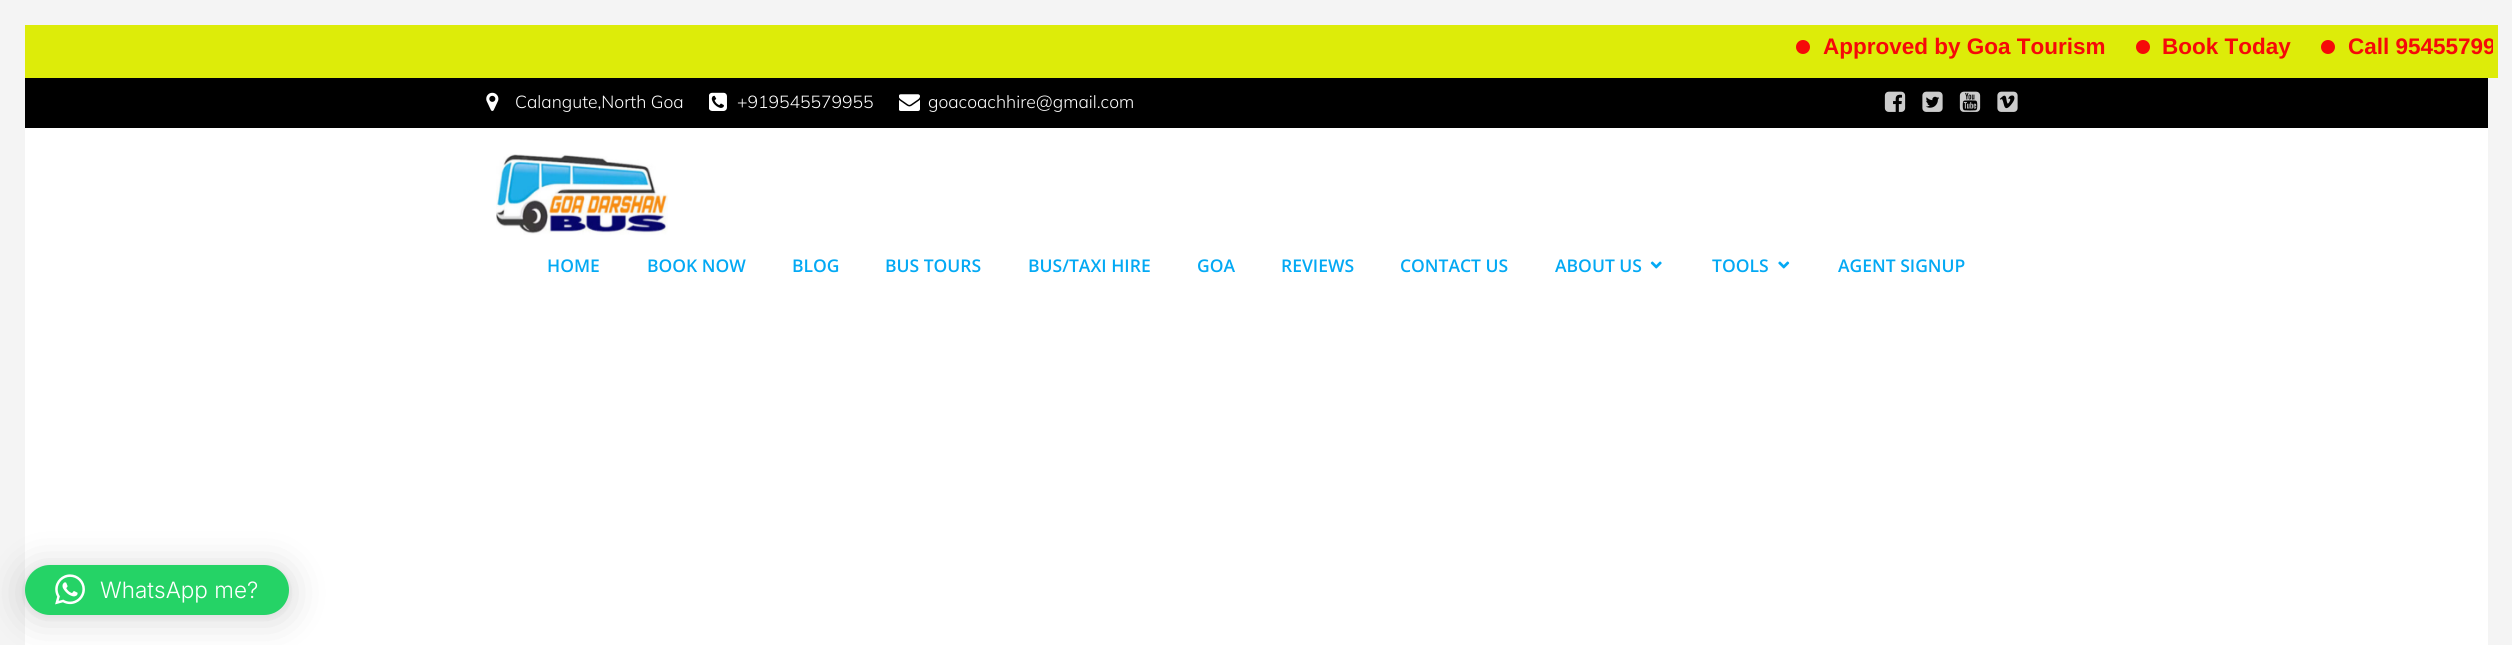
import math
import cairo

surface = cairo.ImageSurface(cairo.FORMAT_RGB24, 2512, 645)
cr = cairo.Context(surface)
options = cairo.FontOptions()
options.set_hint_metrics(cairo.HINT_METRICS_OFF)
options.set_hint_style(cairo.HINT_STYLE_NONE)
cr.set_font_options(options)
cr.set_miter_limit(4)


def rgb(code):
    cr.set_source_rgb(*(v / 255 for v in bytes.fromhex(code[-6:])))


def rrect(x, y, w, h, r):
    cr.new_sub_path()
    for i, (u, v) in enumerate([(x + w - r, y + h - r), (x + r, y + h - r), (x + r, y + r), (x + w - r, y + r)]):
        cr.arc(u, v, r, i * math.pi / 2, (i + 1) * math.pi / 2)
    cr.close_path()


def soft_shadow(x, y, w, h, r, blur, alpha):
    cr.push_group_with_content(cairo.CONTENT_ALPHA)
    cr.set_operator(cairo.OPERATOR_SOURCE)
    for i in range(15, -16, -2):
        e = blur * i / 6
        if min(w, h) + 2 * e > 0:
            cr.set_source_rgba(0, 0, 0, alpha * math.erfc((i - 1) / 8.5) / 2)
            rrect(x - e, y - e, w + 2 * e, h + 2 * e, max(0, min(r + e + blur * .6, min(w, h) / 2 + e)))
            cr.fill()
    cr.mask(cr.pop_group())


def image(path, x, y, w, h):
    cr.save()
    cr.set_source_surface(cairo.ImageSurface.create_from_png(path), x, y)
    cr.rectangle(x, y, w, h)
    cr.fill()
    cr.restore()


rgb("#f4f4f4")
cr.paint()
rgb("#ddec09")
cr.rectangle(25, 25, 2473, 53)
cr.fill()
rgb("#f60909")
cr.arc(1803, 47, 7, 0, 2 * math.pi)
cr.fill()
cr.arc(2143, 47, 7, 0, 2 * math.pi)
cr.fill()
cr.arc(2328, 47, 7, 0, 2 * math.pi)
cr.fill()
rgb("#000000")
cr.rectangle(25, 78, 2463, 50)
cr.fill()
image("img/1.png", 486, 92, 13, 19)
image("img/2.png", 709, 92, 18, 19)
image("img/3.png", 899, 94, 21, 17)
image("img/4.png", 1884, 91, 22, 21)
image("img/5.png", 1922, 91, 21, 21)
image("img/6.png", 1959, 91, 22, 21)
image("img/7.png", 1997, 91, 21, 21)
rgb("#ffffff")
cr.rectangle(25, 128, 2463, 517)
cr.fill()
image("img/8.png", 496, 154, 172, 81)
image("img/9.png", 1650, 261, 12, 8)
image("img/10.png", 1778, 261, 12, 8)
rgb("#000000")
soft_shadow(25, 568, 264, 50, 25, 20, 0.16)
soft_shadow(25, 566, 264, 50, 25, 4, 0.06)
rgb("#25d366")
rrect(25, 565, 264, 50, 25)
cr.fill()
image("img/11.png", 55, 574, 30, 31)
cr.select_font_face("Liberation Sans", cairo.FONT_SLANT_NORMAL, cairo.FONT_WEIGHT_BOLD)
cr.set_font_size(22.5)
rgb("#f60909")
cr.move_to(1823, 54)
cr.show_text("Approved by Goa Tourism")
cr.move_to(2162, 54)
cr.show_text("Book Today")
cr.save()
cr.rectangle(30, 34, 2463, 26)
cr.clip()
cr.move_to(2348, 54)
cr.show_text("Call 95455799")
cr.restore()
cr.select_font_face("Mulish Light")
cr.set_font_size(17.5)
rgb("#ffffff")
for x, y, s in [
    (515, 108, "Calangute,North Goa"),
    (737, 108, "+919545579955"),
    (928, 108, "goacoachhire@gmail.com"),
]:
    cr.move_to(x, y)
    cr.show_text(s)
cr.select_font_face("Open Sans SemiBold")
rgb("#03a9f4")
for x, y, s in [
    (547, 272, "HOME"),
    (647, 272, "BOOK NOW"),
    (792, 272, "BLOG"),
    (885, 272, "BUS TOURS"),
    (1028, 272, "BUS/TAXI HIRE"),
    (1197, 272, "GOA"),
    (1281, 272, "REVIEWS"),
    (1400, 272, "CONTACT US"),
    (1555, 272, "ABOUT US"),
    (1712, 272, "TOOLS"),
    (1838, 272, "AGENT SIGNUP"),
]:
    cr.move_to(x, y)
    cr.show_text(s)
cr.select_font_face("Inter Light")
cr.set_font_size(22.5)
rgb("#ffffff")
cr.move_to(100, 598)
cr.show_text("WhatsApp me?")
surface.write_to_png("page.png")
